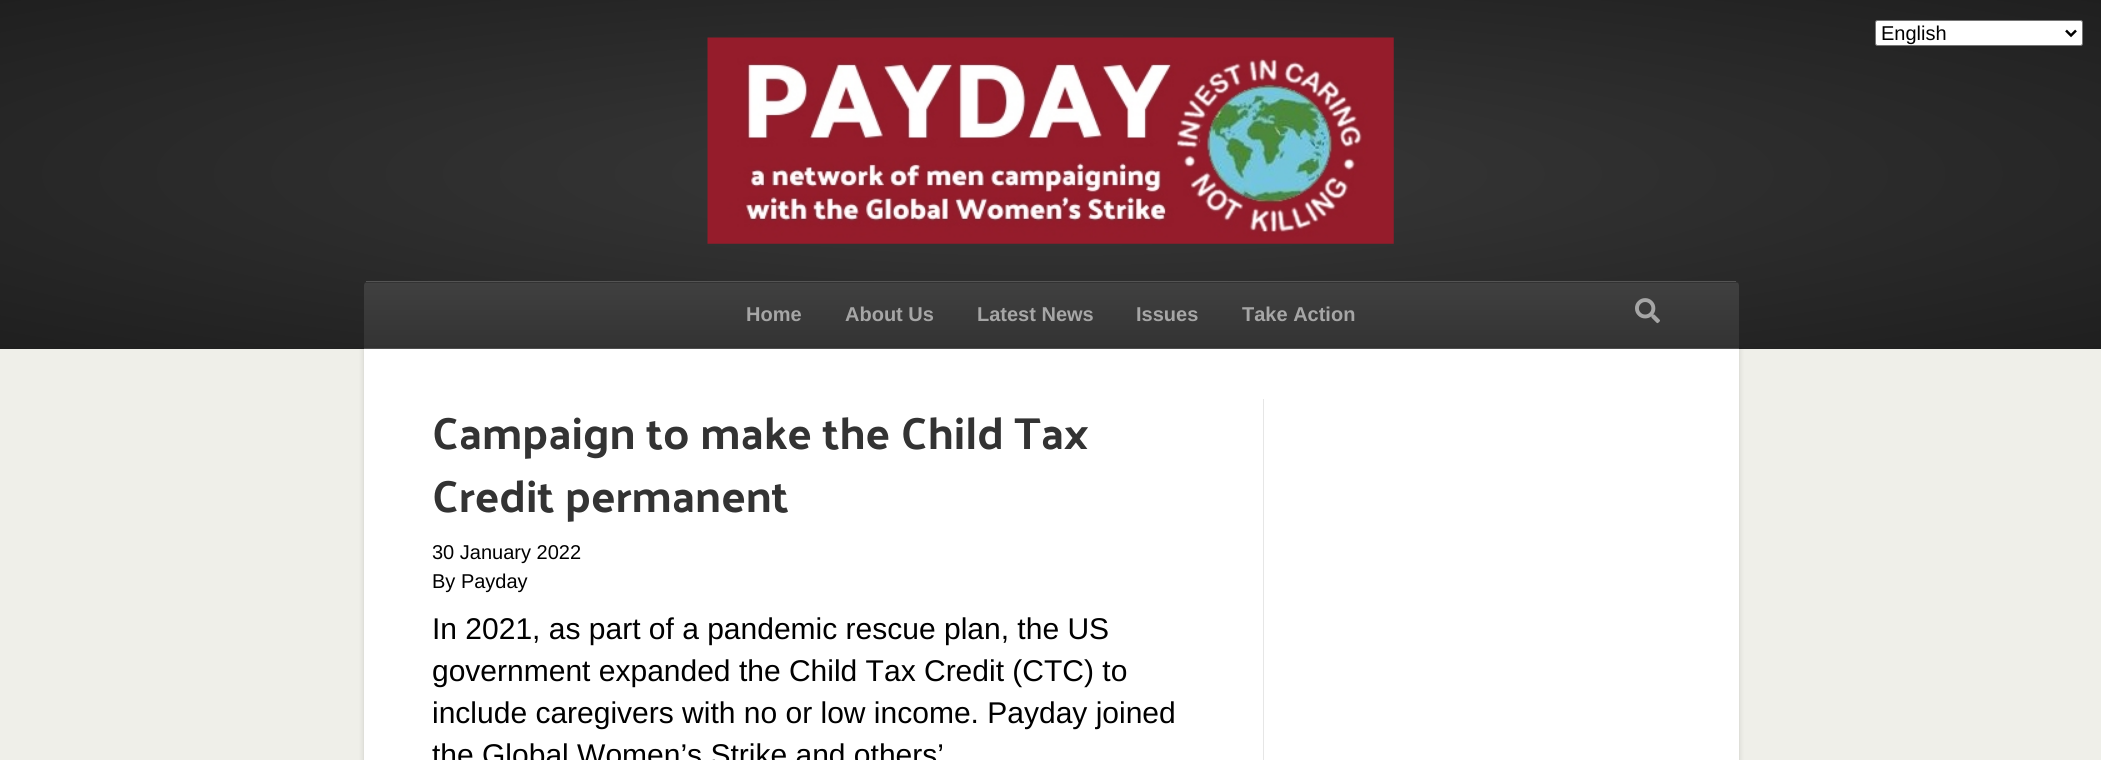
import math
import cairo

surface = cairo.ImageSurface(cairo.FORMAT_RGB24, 2101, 760)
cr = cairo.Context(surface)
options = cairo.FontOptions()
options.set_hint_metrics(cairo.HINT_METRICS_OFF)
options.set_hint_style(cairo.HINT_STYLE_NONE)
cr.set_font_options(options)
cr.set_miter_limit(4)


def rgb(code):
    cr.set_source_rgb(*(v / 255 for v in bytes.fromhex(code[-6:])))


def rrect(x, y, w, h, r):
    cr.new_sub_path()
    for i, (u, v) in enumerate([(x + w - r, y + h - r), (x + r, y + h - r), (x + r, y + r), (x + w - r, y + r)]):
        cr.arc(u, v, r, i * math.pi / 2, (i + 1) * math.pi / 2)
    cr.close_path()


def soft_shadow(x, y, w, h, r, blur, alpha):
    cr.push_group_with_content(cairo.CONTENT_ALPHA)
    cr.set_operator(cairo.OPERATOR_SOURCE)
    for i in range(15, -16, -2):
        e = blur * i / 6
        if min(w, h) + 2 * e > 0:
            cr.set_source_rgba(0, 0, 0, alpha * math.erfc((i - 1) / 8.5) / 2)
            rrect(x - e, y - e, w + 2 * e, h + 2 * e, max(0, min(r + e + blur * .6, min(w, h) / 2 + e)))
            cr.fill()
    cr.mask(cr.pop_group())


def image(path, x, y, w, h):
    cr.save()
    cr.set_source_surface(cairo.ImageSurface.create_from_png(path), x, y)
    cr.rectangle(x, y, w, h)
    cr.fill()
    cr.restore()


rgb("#efefe9")
cr.paint()
gradient = cairo.RadialGradient(0, 0, 0, 0, 0, 1)
gradient.set_matrix(cairo.Matrix(1 / 1486, 0, 0, 1 / 247, -1 * 1051 / 1486, -1 * 174 / 247))
gradient.add_color_stop_rgba(0, 0.224, 0.224, 0.224, 1)
gradient.add_color_stop_rgba(1, 0.122, 0.122, 0.122, 1)
cr.set_source(gradient)
cr.rectangle(0, 0, 2101, 349)
cr.fill()
rgb("#ffffff")
rrect(1875.5, 20.5, 207, 25, 2)
cr.fill_preserve()
rgb("#767676")
cr.set_line_width(1)
cr.stroke()
cr.new_path()
cr.move_to(2066, 30.5)
cr.line_to(2071, 35.5)
cr.line_to(2076, 30.5)
rgb("#000000")
cr.set_line_width(2.5)
cr.stroke()
image("img/1.png", 707, 37, 687, 207)
cr.save()
cr.new_path()
cr.move_to(369, 281)
cr.line_to(1734, 281)
cr.curve_to(1737, 281, 1739, 283, 1739, 286)
cr.line_to(1739, 349)
cr.line_to(364, 349)
cr.line_to(364, 286)
cr.curve_to(364, 283, 366, 281, 369, 281)
cr.close_path()
cr.clip()
gradient = cairo.LinearGradient(1051, 217, 1051, 283)
gradient.add_color_stop_rgba(0, 0.251, 0.251, 0.251, 1)
gradient.add_color_stop_rgba(1, 0.2, 0.2, 0.2, 1)
cr.set_source(gradient)
cr.rectangle(364, 281, 1375, 2)
cr.fill()
gradient = cairo.LinearGradient(1051, 282, 1051, 348)
gradient.add_color_stop_rgba(0, 0.251, 0.251, 0.251, 1)
gradient.add_color_stop_rgba(1, 0.2, 0.2, 0.2, 1)
cr.set_source(gradient)
cr.rectangle(364, 283, 1375, 65)
cr.fill()
cr.restore()
rgb("#545454")
cr.rectangle(366, 281, 1370, 1)
cr.fill()
cr.rectangle(364, 348, 1375, 1)
cr.fill()
image("img/2.png", 1635, 298, 25, 26)
rgb("#000000")
soft_shadow(364, 349, 1375, 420, 0, 3, 0.15)
rgb("#ffffff")
cr.rectangle(364, 349, 1375, 411)
cr.fill()
rgb("#e6e6e6")
cr.rectangle(1263, 399, 1, 361)
cr.fill()
cr.select_font_face("Liberation Sans")
cr.set_font_size(20)
rgb("#000000")
cr.move_to(1881, 40)
cr.show_text("English")
cr.select_font_face("Liberation Sans", cairo.FONT_SLANT_NORMAL, cairo.FONT_WEIGHT_BOLD)
rgb("#a6a6a6")
for x, y, s in [
    (746, 321, "Home"),
    (845, 321, "About Us"),
    (977, 321, "Latest News"),
    (1136, 321, "Issues"),
    (1242, 321, "Take Action"),
]:
    cr.move_to(x, y)
    cr.show_text(s)
cr.select_font_face("Palanquin Dark")
cr.set_font_size(45)
rgb("#333333")
cr.move_to(432, 449)
cr.show_text("Campaign to make the Child Tax")
cr.move_to(432, 512)
cr.show_text("Credit permanent")
cr.select_font_face("Liberation Sans")
cr.set_font_size(20)
rgb("#000000")
cr.move_to(432, 559)
cr.show_text("30 January 2022")
cr.move_to(432, 588)
cr.show_text("By Payday")
cr.set_font_size(30)
for x, y, s in [
    (432, 639, "In 2021, as part of a pandemic rescue plan, the US"),
    (432, 681, "government expanded the Child Tax Credit (CTC) to"),
    (432, 723, "include caregivers with no or low income. Payday joined"),
    (432, 765, "the Global Women’s Strike and others’"),
]:
    cr.move_to(x, y)
    cr.show_text(s)
surface.write_to_png("page.png")
